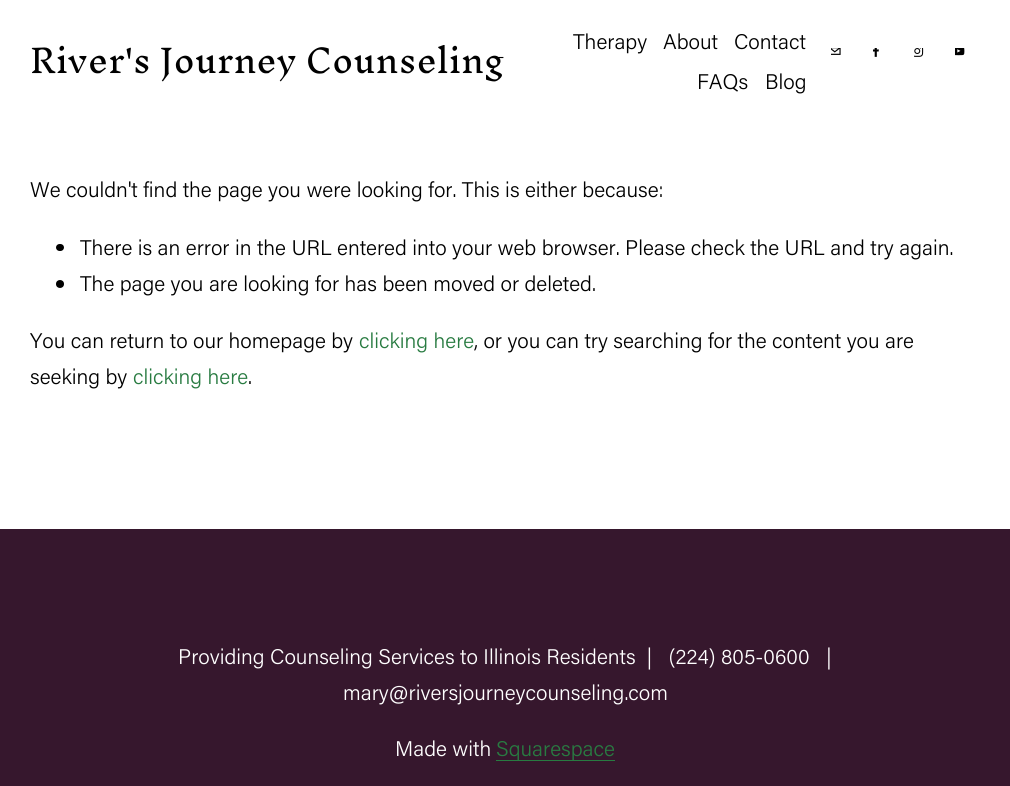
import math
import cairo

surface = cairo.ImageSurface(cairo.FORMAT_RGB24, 1010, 786)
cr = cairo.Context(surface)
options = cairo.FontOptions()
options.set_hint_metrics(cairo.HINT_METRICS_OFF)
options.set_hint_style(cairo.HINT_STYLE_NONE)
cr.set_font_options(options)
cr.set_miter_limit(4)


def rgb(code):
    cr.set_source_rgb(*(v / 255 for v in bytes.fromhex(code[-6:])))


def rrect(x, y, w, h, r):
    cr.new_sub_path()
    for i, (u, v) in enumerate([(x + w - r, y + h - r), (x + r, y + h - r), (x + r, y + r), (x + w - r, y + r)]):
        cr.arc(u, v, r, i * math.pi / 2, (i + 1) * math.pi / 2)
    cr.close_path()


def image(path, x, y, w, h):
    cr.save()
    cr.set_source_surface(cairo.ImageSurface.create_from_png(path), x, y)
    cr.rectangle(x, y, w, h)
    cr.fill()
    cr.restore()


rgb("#ffffff")
cr.paint()
image("img/1.png", 831, 48, 10, 7)
image("img/2.png", 873, 48, 6, 9)
image("img/3.png", 914, 48, 10, 9)
image("img/4.png", 955, 48, 10, 8)
rgb("#000000")
rrect(56, 244, 8, 7, 3.5)
cr.fill()
cr.arc(60, 284, 4, 0, 2 * math.pi)
cr.fill()
rgb("#36172d")
cr.rectangle(0, 529, 1010, 257)
cr.fill()
rgb("#287b41")
cr.rectangle(496, 760, 119, 1)
cr.fill()
cr.select_font_face("Inknut Antiqua Light")
cr.set_font_size(32.1)
rgb("#000000")
cr.move_to(30, 73)
cr.show_text("River's Journey Counseling")
cr.select_font_face("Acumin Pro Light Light")
cr.set_font_size(21.2)
for x, y, s in [
    (573, 49, "Therapy"),
    (663, 49, "About"),
    (734, 49, "Contact"),
    (697, 89, "FAQs"),
    (765, 89, "Blog"),
    (30, 197, "We couldn't find the page you were looking for. This is either because:"),
    (80, 255, "There is an error in the URL entered into your web browser. Please check the URL and try again."),
    (80, 291, "The page you are looking for has been moved or deleted."),
    (30, 348, "You can return to our homepage by"),
]:
    cr.move_to(x, y)
    cr.show_text(s)
rgb("#287b41")
cr.move_to(359, 348)
cr.show_text("clicking here")
rgb("#000000")
cr.move_to(474, 348)
cr.show_text(", or you can try searching for the content you are")
cr.move_to(30, 384)
cr.show_text("seeking by")
rgb("#287b41")
cr.move_to(133, 384)
cr.show_text("clicking here")
rgb("#000000")
cr.move_to(248, 384)
cr.show_text(".")
rgb("#ffffff")
for x, y, s in [
    (178, 664, "Providing Counseling Services to Illinois Residents  |   (224) 805-0600   |"),
    (343, 700, "mary@riversjourneycounseling.com"),
    (395, 756, "Made with"),
]:
    cr.move_to(x, y)
    cr.show_text(s)
rgb("#287b41")
cr.move_to(496, 756)
cr.show_text("Squarespace")
surface.write_to_png("page.png")
